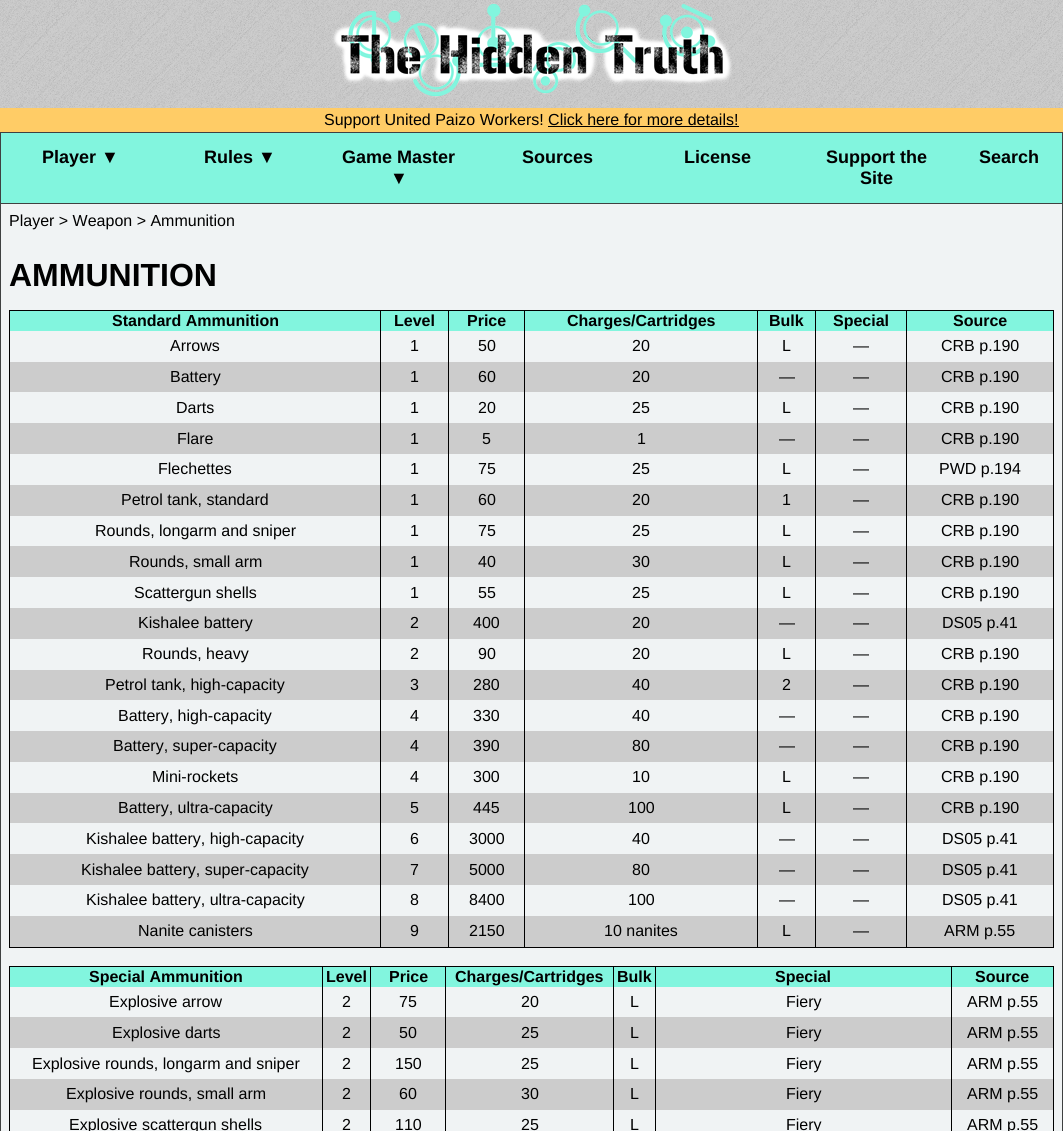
import math
import cairo

surface = cairo.ImageSurface(cairo.FORMAT_RGB24, 1063, 1131)
cr = cairo.Context(surface)
options = cairo.FontOptions()
options.set_hint_metrics(cairo.HINT_METRICS_OFF)
options.set_hint_style(cairo.HINT_STYLE_NONE)
cr.set_font_options(options)
cr.set_miter_limit(4)


def rgb(code):
    cr.set_source_rgb(*(v / 255 for v in bytes.fromhex(code[-6:])))


def image(path, x, y, w, h):
    cr.save()
    cr.set_source_surface(cairo.ImageSurface.create_from_png(path), x, y)
    cr.rectangle(x, y, w, h)
    cr.fill()
    cr.restore()


rgb("#cccccc")
cr.paint()
image("img/1.png", 0, 0, 1063, 108)
image("img/2.png", 332, 3, 400, 94)
rgb("#ffcc66")
cr.rectangle(0, 108, 1063, 24)
cr.fill()
rgb("#000000")
cr.rectangle(548, 126, 191, 1)
cr.fill()
rgb("#82f5de")
cr.rectangle(0.5, 132.5, 1062, 71)
cr.fill_preserve()
rgb("#3f4141")
cr.set_line_width(1)
cr.stroke()
for x, y, w, h, color in [
    (1, 204, 1061, 927, "#f0f3f4"),
    (1062, 204, 1, 927, "#3f4141"),
    (0, 204, 1, 927, "#3f4141"),
    (9, 310, 1045, 1, "#000000"),
    (1053, 310, 1, 638, "#000000"),
    (9, 947, 1045, 1, "#000000"),
    (9, 310, 1, 638, "#000000"),
    (10, 311, 370, 20, "#82f5de"),
    (381, 311, 67, 20, "#82f5de"),
    (449, 311, 75, 20, "#82f5de"),
    (525, 311, 232, 20, "#82f5de"),
    (758, 311, 57, 20, "#82f5de"),
    (816, 311, 90, 20, "#82f5de"),
    (907, 311, 146, 20, "#82f5de"),
    (10, 362, 1043, 30, "#cccccc"),
    (10, 423, 1043, 31, "#cccccc"),
    (10, 485, 1043, 31, "#cccccc"),
    (10, 546, 1043, 31, "#cccccc"),
    (10, 608, 1043, 31, "#cccccc"),
    (10, 670, 1043, 30, "#cccccc"),
    (10, 731, 1043, 31, "#cccccc"),
    (10, 793, 1043, 30, "#cccccc"),
    (10, 854, 1043, 31, "#cccccc"),
    (10, 916, 1043, 31, "#cccccc"),
    (380, 310, 1, 638, "#000000"),
    (448, 310, 1, 638, "#000000"),
    (524, 310, 1, 638, "#000000"),
    (757, 310, 1, 638, "#000000"),
    (815, 310, 1, 638, "#000000"),
    (906, 310, 1, 638, "#000000"),
    (9, 966, 1045, 1, "#000000"),
    (1053, 966, 1, 165, "#000000"),
    (9, 966, 1, 165, "#000000"),
    (10, 967, 312, 20, "#82f5de"),
    (323, 967, 47, 20, "#82f5de"),
    (371, 967, 74, 20, "#82f5de"),
    (446, 967, 167, 20, "#82f5de"),
    (614, 967, 41, 20, "#82f5de"),
    (656, 967, 295, 20, "#82f5de"),
    (952, 967, 101, 20, "#82f5de"),
    (10, 1017, 1043, 31, "#cccccc"),
    (10, 1079, 1043, 31, "#cccccc"),
    (322, 966, 1, 165, "#000000"),
    (370, 966, 1, 165, "#000000"),
    (445, 966, 1, 165, "#000000"),
    (613, 966, 1, 165, "#000000"),
    (655, 966, 1, 165, "#000000"),
    (951, 966, 1, 165, "#000000"),
]:
    rgb(color)
    cr.rectangle(x, y, w, h)
    cr.fill()
cr.select_font_face("Liberation Sans")
cr.set_font_size(16)
cr.move_to(324, 125)
cr.show_text("Support United Paizo Workers! Click here for more details!")
cr.select_font_face("Liberation Sans", cairo.FONT_SLANT_NORMAL, cairo.FONT_WEIGHT_BOLD)
cr.set_font_size(18)
for x, y, s in [
    (42, 163, "Player ▼"),
    (204, 163, "Rules ▼"),
    (342, 163, "Game Master"),
    (390, 184, "▼"),
    (522, 163, "Sources"),
    (684, 163, "License"),
    (826, 163, "Support the"),
    (860, 184, "Site"),
    (979, 163, "Search"),
]:
    cr.move_to(x, y)
    cr.show_text(s)
cr.select_font_face("Liberation Sans")
cr.set_font_size(16)
cr.move_to(9, 226)
cr.show_text("Player > Weapon > Ammunition")
cr.select_font_face("Liberation Sans", cairo.FONT_SLANT_NORMAL, cairo.FONT_WEIGHT_BOLD)
cr.set_font_size(32)
cr.move_to(9, 286)
cr.show_text("AMMUNITION")
cr.set_font_size(16)
for x, y, s in [
    (112, 326, "Standard Ammunition"),
    (394, 326, "Level"),
    (467, 326, "Price"),
    (567, 326, "Charges/Cartridges"),
    (769, 326, "Bulk"),
    (833, 326, "Special"),
    (953, 326, "Source"),
]:
    cr.move_to(x, y)
    cr.show_text(s)
cr.select_font_face("Liberation Sans")
for x, y, s in [
    (170, 351, "Arrows"),
    (410, 351, "1"),
    (478, 351, "50"),
    (632, 351, "20"),
    (782, 351, "L"),
    (853, 351, "—"),
    (941, 351, "CRB p.190"),
    (170, 382, "Battery"),
    (410, 382, "1"),
    (478, 382, "60"),
    (632, 382, "20"),
    (779, 382, "—"),
    (853, 382, "—"),
    (941, 382, "CRB p.190"),
    (176, 413, "Darts"),
    (410, 413, "1"),
    (478, 413, "20"),
    (632, 413, "25"),
    (782, 413, "L"),
    (853, 413, "—"),
    (941, 413, "CRB p.190"),
    (177, 444, "Flare"),
    (410, 444, "1"),
    (482, 444, "5"),
    (637, 444, "1"),
    (779, 444, "—"),
    (853, 444, "—"),
    (941, 444, "CRB p.190"),
    (158, 474, "Flechettes"),
    (410, 474, "1"),
    (478, 474, "75"),
    (632, 474, "25"),
    (782, 474, "L"),
    (853, 474, "—"),
    (939, 474, "PWD p.194"),
    (121, 505, "Petrol tank, standard"),
    (410, 505, "1"),
    (478, 505, "60"),
    (632, 505, "20"),
    (782, 505, "1"),
    (853, 505, "—"),
    (941, 505, "CRB p.190"),
    (95, 536, "Rounds, longarm and sniper"),
    (410, 536, "1"),
    (478, 536, "75"),
    (632, 536, "25"),
    (782, 536, "L"),
    (853, 536, "—"),
    (941, 536, "CRB p.190"),
    (129, 567, "Rounds, small arm"),
    (410, 567, "1"),
    (478, 567, "40"),
    (632, 567, "30"),
    (782, 567, "L"),
    (853, 567, "—"),
    (941, 567, "CRB p.190"),
    (134, 598, "Scattergun shells"),
    (410, 598, "1"),
    (478, 598, "55"),
    (632, 598, "25"),
    (782, 598, "L"),
    (853, 598, "—"),
    (941, 598, "CRB p.190"),
    (138, 628, "Kishalee battery"),
    (410, 628, "2"),
    (473, 628, "400"),
    (632, 628, "20"),
    (779, 628, "—"),
    (853, 628, "—"),
    (942, 628, "DS05 p.41"),
    (142, 659, "Rounds, heavy"),
    (410, 659, "2"),
    (478, 659, "90"),
    (632, 659, "20"),
    (782, 659, "L"),
    (853, 659, "—"),
    (941, 659, "CRB p.190"),
    (105, 690, "Petrol tank, high-capacity"),
    (410, 690, "3"),
    (473, 690, "280"),
    (632, 690, "40"),
    (782, 690, "2"),
    (853, 690, "—"),
    (941, 690, "CRB p.190"),
    (118, 721, "Battery, high-capacity"),
    (410, 721, "4"),
    (473, 721, "330"),
    (632, 721, "40"),
    (779, 721, "—"),
    (853, 721, "—"),
    (941, 721, "CRB p.190"),
    (113, 751, "Battery, super-capacity"),
    (410, 751, "4"),
    (473, 751, "390"),
    (632, 751, "80"),
    (779, 751, "—"),
    (853, 751, "—"),
    (941, 751, "CRB p.190"),
    (152, 782, "Mini-rockets"),
    (410, 782, "4"),
    (473, 782, "300"),
    (632, 782, "10"),
    (782, 782, "L"),
    (853, 782, "—"),
    (941, 782, "CRB p.190"),
    (118, 813, "Battery, ultra-capacity"),
    (410, 813, "5"),
    (473, 813, "445"),
    (628, 813, "100"),
    (782, 813, "L"),
    (853, 813, "—"),
    (941, 813, "CRB p.190"),
    (86, 844, "Kishalee battery, high-capacity"),
    (410, 844, "6"),
    (469, 844, "3000"),
    (632, 844, "40"),
    (779, 844, "—"),
    (853, 844, "—"),
    (942, 844, "DS05 p.41"),
    (81, 875, "Kishalee battery, super-capacity"),
    (410, 875, "7"),
    (469, 875, "5000"),
    (632, 875, "80"),
    (779, 875, "—"),
    (853, 875, "—"),
    (942, 875, "DS05 p.41"),
    (86, 905, "Kishalee battery, ultra-capacity"),
    (410, 905, "8"),
    (469, 905, "8400"),
    (628, 905, "100"),
    (779, 905, "—"),
    (853, 905, "—"),
    (942, 905, "DS05 p.41"),
    (138, 936, "Nanite canisters"),
    (410, 936, "9"),
    (469, 936, "2150"),
    (604, 936, "10 nanites"),
    (782, 936, "L"),
    (853, 936, "—"),
    (944, 936, "ARM p.55"),
]:
    cr.move_to(x, y)
    cr.show_text(s)
cr.select_font_face("Liberation Sans", cairo.FONT_SLANT_NORMAL, cairo.FONT_WEIGHT_BOLD)
for x, y, s in [
    (89, 982, "Special Ammunition"),
    (326, 982, "Level"),
    (389, 982, "Price"),
    (455, 982, "Charges/Cartridges"),
    (617, 982, "Bulk"),
    (775, 982, "Special"),
    (975, 982, "Source"),
]:
    cr.move_to(x, y)
    cr.show_text(s)
cr.select_font_face("Liberation Sans")
for x, y, s in [
    (109, 1007, "Explosive arrow"),
    (342, 1007, "2"),
    (399, 1007, "75"),
    (521, 1007, "20"),
    (630, 1007, "L"),
    (786, 1007, "Fiery"),
    (967, 1007, "ARM p.55"),
    (112, 1038, "Explosive darts"),
    (342, 1038, "2"),
    (399, 1038, "50"),
    (521, 1038, "25"),
    (630, 1038, "L"),
    (786, 1038, "Fiery"),
    (967, 1038, "ARM p.55"),
    (32, 1069, "Explosive rounds, longarm and sniper"),
    (342, 1069, "2"),
    (395, 1069, "150"),
    (521, 1069, "25"),
    (630, 1069, "L"),
    (786, 1069, "Fiery"),
    (967, 1069, "ARM p.55"),
    (66, 1099, "Explosive rounds, small arm"),
    (342, 1099, "2"),
    (399, 1099, "60"),
    (521, 1099, "30"),
    (630, 1099, "L"),
    (786, 1099, "Fiery"),
    (967, 1099, "ARM p.55"),
    (69, 1130, "Explosive scattergun shells"),
    (342, 1130, "2"),
    (395, 1130, "110"),
    (521, 1130, "25"),
    (630, 1130, "L"),
    (786, 1130, "Fiery"),
    (967, 1130, "ARM p.55"),
]:
    cr.move_to(x, y)
    cr.show_text(s)
surface.write_to_png("page.png")
